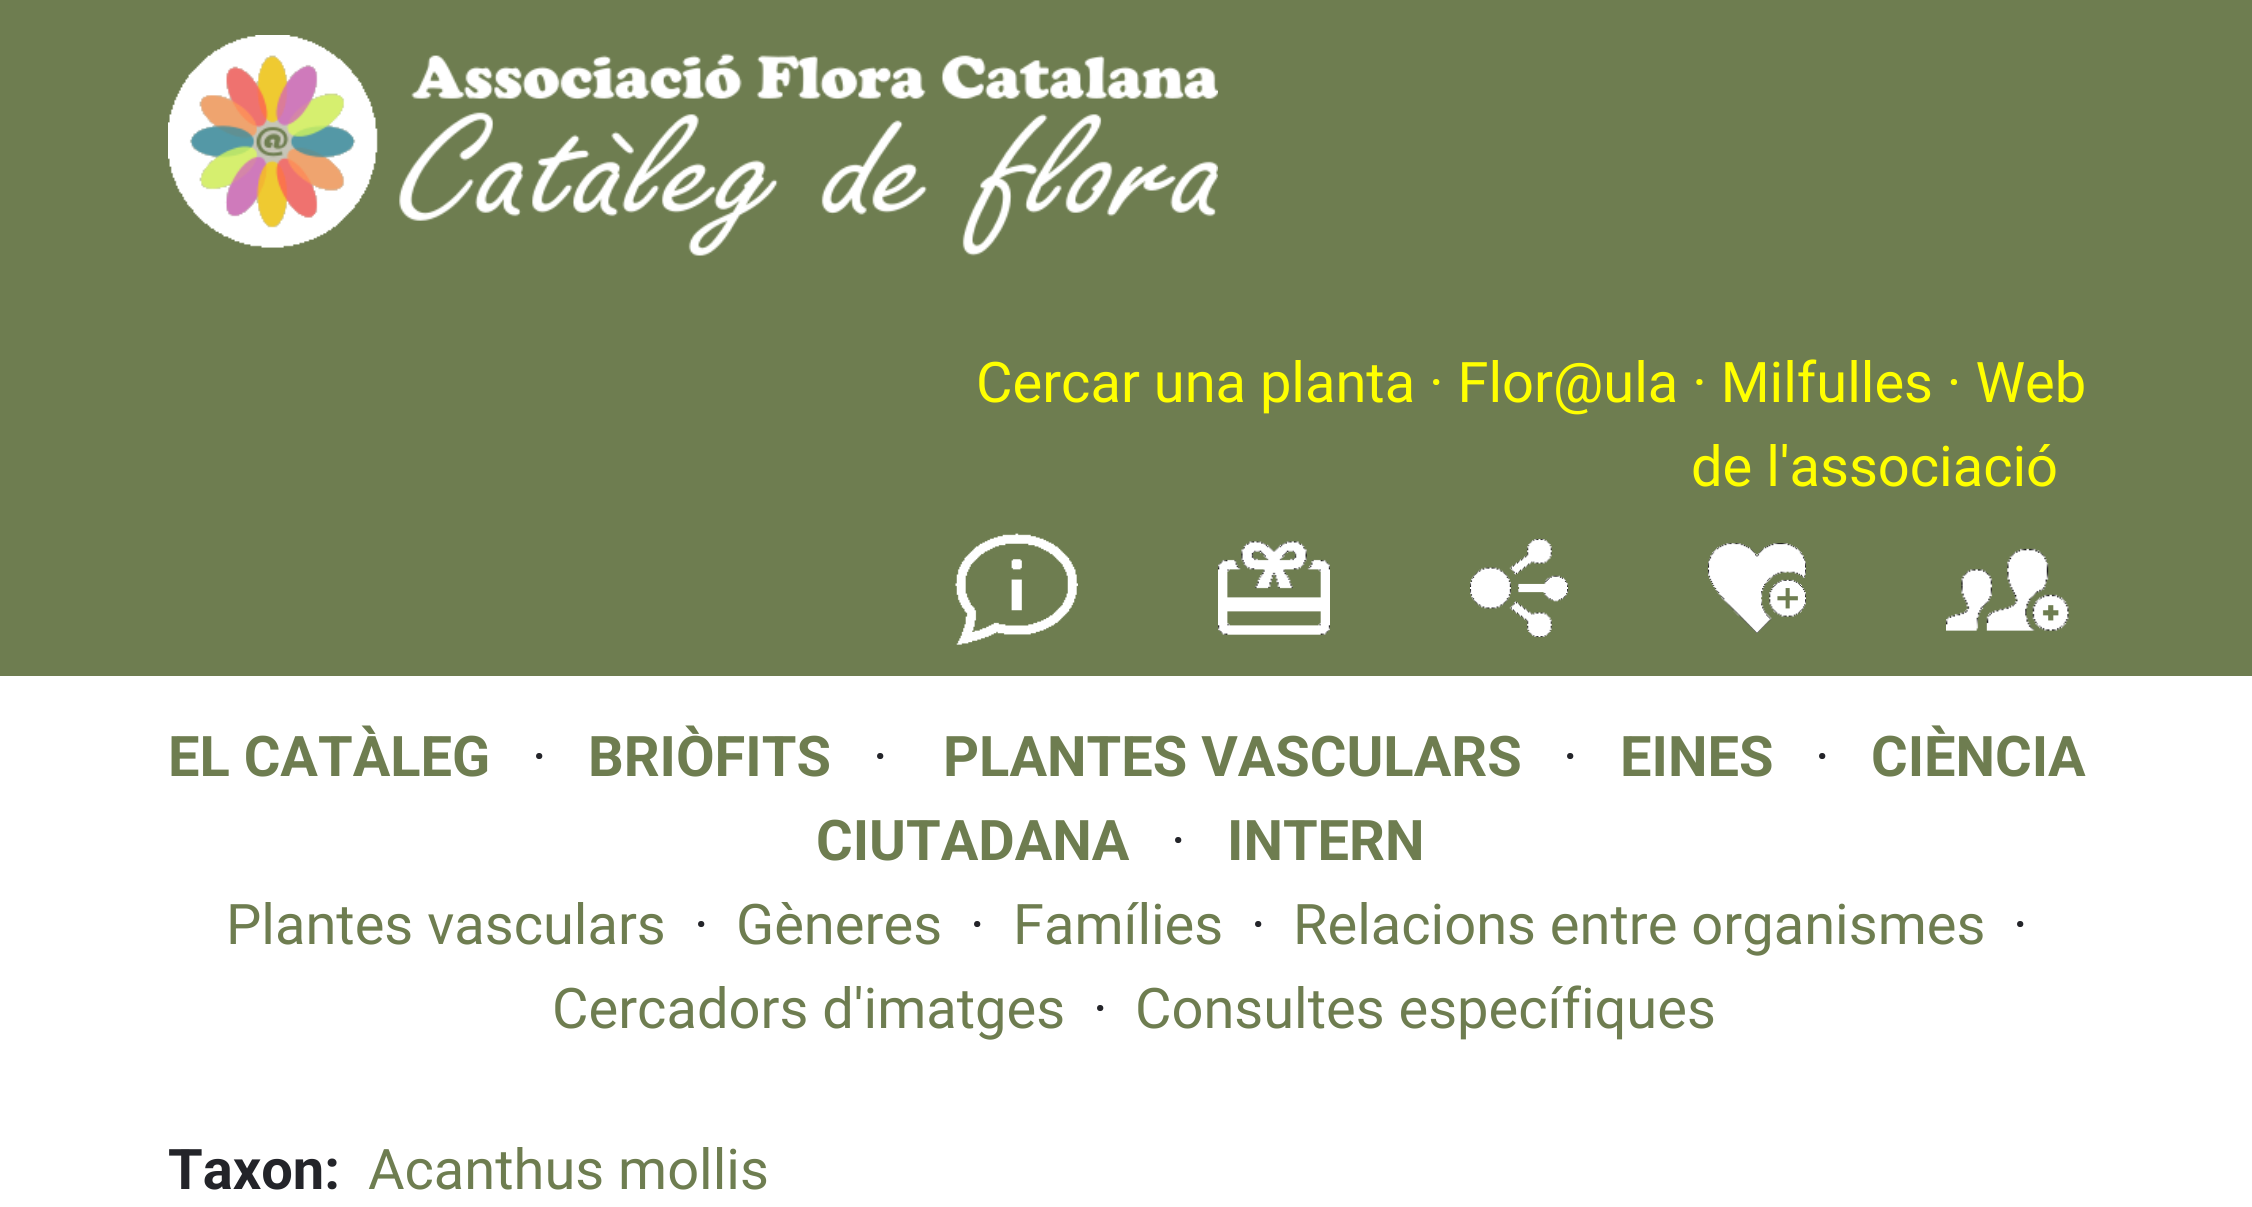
import math
import cairo

surface = cairo.ImageSurface(cairo.FORMAT_RGB24, 2252, 1207)
cr = cairo.Context(surface)
options = cairo.FontOptions()
options.set_hint_metrics(cairo.HINT_METRICS_OFF)
options.set_hint_style(cairo.HINT_STYLE_NONE)
cr.set_font_options(options)
cr.set_miter_limit(4)


def rgb(code):
    cr.set_source_rgb(*(v / 255 for v in bytes.fromhex(code[-6:])))


def image(path, x, y, w, h):
    cr.save()
    cr.set_source_surface(cairo.ImageSurface.create_from_png(path), x, y)
    cr.rectangle(x, y, w, h)
    cr.fill()
    cr.restore()


rgb("#ffffff")
cr.paint()
rgb("#6e7d50")
cr.rectangle(0, 0, 2252, 676)
cr.fill()
image("img/1.png", 168, 35, 1050, 221)
image("img/2.png", 955, 533, 123, 112)
image("img/3.png", 1218, 541, 112, 94)
image("img/4.png", 1470, 539, 98, 98)
image("img/5.png", 1708, 543, 98, 90)
image("img/6.png", 1946, 548, 123, 83)
cr.select_font_face("Roboto")
cr.set_font_size(56)
rgb("#ffff00")
cr.move_to(976, 402)
cr.show_text("Cercar una planta · Flor@ula · Milfulles · Web")
cr.move_to(1691, 486)
cr.show_text("de l'associació")
cr.select_font_face("Roboto", cairo.FONT_SLANT_NORMAL, cairo.FONT_WEIGHT_BOLD)
rgb("#6e7d50")
cr.move_to(168, 776)
cr.show_text("EL CATÀLEG")
cr.select_font_face("Roboto")
rgb("#232429")
cr.move_to(532, 776)
cr.show_text("·")
cr.select_font_face("Roboto", cairo.FONT_SLANT_NORMAL, cairo.FONT_WEIGHT_BOLD)
rgb("#6e7d50")
cr.move_to(588, 776)
cr.show_text("BRIÒFITS")
cr.select_font_face("Roboto")
rgb("#232429")
cr.move_to(873, 776)
cr.show_text("·")
cr.select_font_face("Roboto", cairo.FONT_SLANT_NORMAL, cairo.FONT_WEIGHT_BOLD)
rgb("#6e7d50")
cr.move_to(943, 776)
cr.show_text("PLANTES VASCULARS")
cr.select_font_face("Roboto")
rgb("#232429")
cr.move_to(1563, 776)
cr.show_text("·")
cr.select_font_face("Roboto", cairo.FONT_SLANT_NORMAL, cairo.FONT_WEIGHT_BOLD)
rgb("#6e7d50")
cr.move_to(1620, 776)
cr.show_text("EINES")
cr.select_font_face("Roboto")
rgb("#232429")
cr.move_to(1815, 776)
cr.show_text("·")
cr.select_font_face("Roboto", cairo.FONT_SLANT_NORMAL, cairo.FONT_WEIGHT_BOLD)
rgb("#6e7d50")
cr.move_to(1871, 776)
cr.show_text("CIÈNCIA")
cr.move_to(816, 860)
cr.show_text("CIUTADANA")
cr.select_font_face("Roboto")
rgb("#232429")
cr.move_to(1171, 860)
cr.show_text("·")
cr.select_font_face("Roboto", cairo.FONT_SLANT_NORMAL, cairo.FONT_WEIGHT_BOLD)
rgb("#6e7d50")
cr.move_to(1227, 860)
cr.show_text("INTERN")
cr.select_font_face("Roboto")
cr.move_to(226, 944)
cr.show_text("Plantes vasculars")
rgb("#232429")
cr.move_to(694, 944)
cr.show_text("·")
rgb("#6e7d50")
cr.move_to(736, 944)
cr.show_text("Gèneres")
rgb("#232429")
cr.move_to(970, 944)
cr.show_text("·")
rgb("#6e7d50")
cr.move_to(1013, 944)
cr.show_text("Famílies")
rgb("#232429")
cr.move_to(1251, 944)
cr.show_text("·")
rgb("#6e7d50")
cr.move_to(1293, 944)
cr.show_text("Relacions entre organismes")
rgb("#232429")
cr.move_to(2013, 944)
cr.show_text("·")
rgb("#6e7d50")
cr.move_to(552, 1028)
cr.show_text("Cercadors d'imatges")
rgb("#232429")
cr.move_to(1093, 1028)
cr.show_text("·")
rgb("#6e7d50")
cr.move_to(1135, 1028)
cr.show_text("Consultes específiques")
cr.select_font_face("Roboto", cairo.FONT_SLANT_NORMAL, cairo.FONT_WEIGHT_BOLD)
rgb("#232429")
cr.move_to(168, 1189)
cr.show_text("Taxon:")
cr.select_font_face("Roboto")
rgb("#6e7d50")
cr.move_to(368, 1189)
cr.show_text("Acanthus mollis")
surface.write_to_png("page.png")
